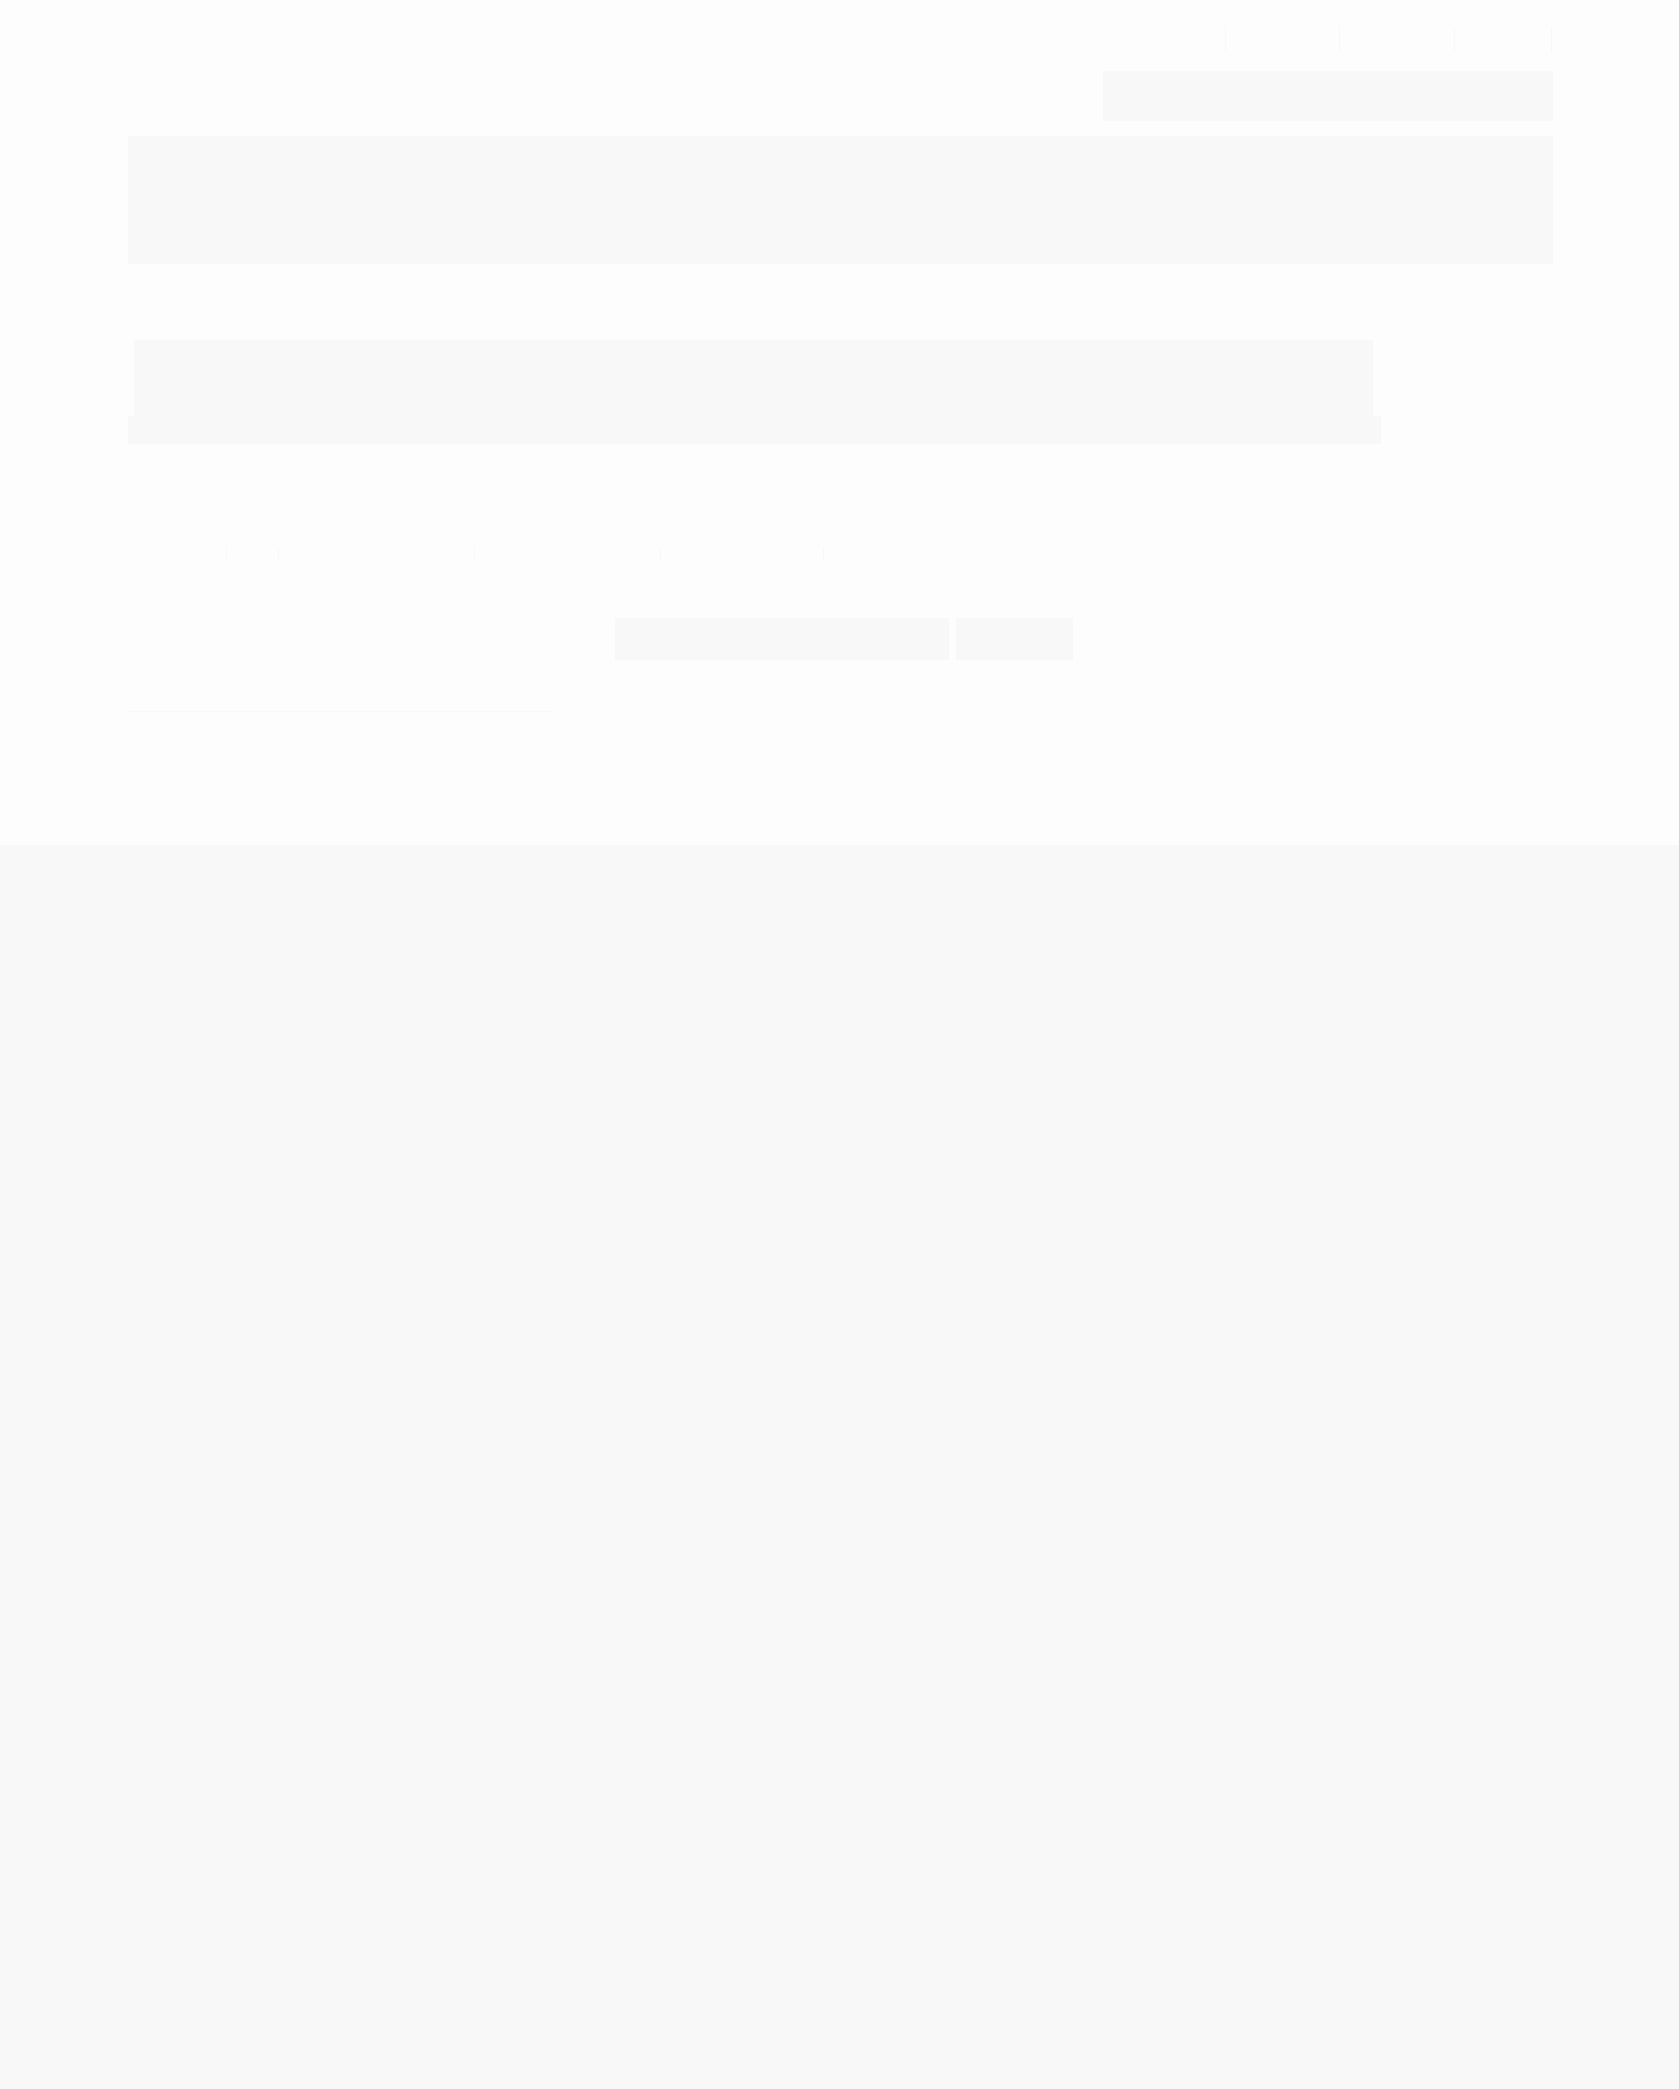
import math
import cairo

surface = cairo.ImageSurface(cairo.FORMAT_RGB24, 1679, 2089)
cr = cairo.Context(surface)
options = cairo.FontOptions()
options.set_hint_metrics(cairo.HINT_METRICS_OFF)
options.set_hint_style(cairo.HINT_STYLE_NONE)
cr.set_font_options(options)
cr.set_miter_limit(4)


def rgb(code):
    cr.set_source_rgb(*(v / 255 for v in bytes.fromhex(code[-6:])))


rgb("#f8f8f8")
cr.paint()
for x, y, w, h, color in [
    (0, 0, 1679, 845, "#fdfdfd"),
    (1225, 25, 1, 28, "#f8f8f8"),
    (1339, 25, 1, 28, "#f8f8f8"),
    (1551, 28, 1, 25, "#f8f8f8"),
    (1454, 28, 1, 25, "#f8f8f8"),
    (1103, 71, 450, 50, "#f8f8f8"),
    (128, 136, 1425, 128, "#f8f8f8"),
    (134, 340, 1239, 76, "#f8f8f8"),
    (128, 416, 1253, 28, "#f8f8f8"),
    (226, 548, 1, 13, "#f8f8f8"),
    (278, 548, 1, 13, "#f8f8f8"),
    (474, 548, 1, 13, "#f8f8f8"),
    (660, 548, 1, 13, "#f8f8f8"),
    (823, 548, 1, 13, "#f8f8f8"),
    (615, 618, 334, 42, "#f8f8f8"),
    (956, 618, 117, 42, "#f8f8f8"),
    (128, 711, 426, 1, "#f8f8f8"),
]:
    rgb(color)
    cr.rectangle(x, y, w, h)
    cr.fill()
surface.write_to_png("page.png")
